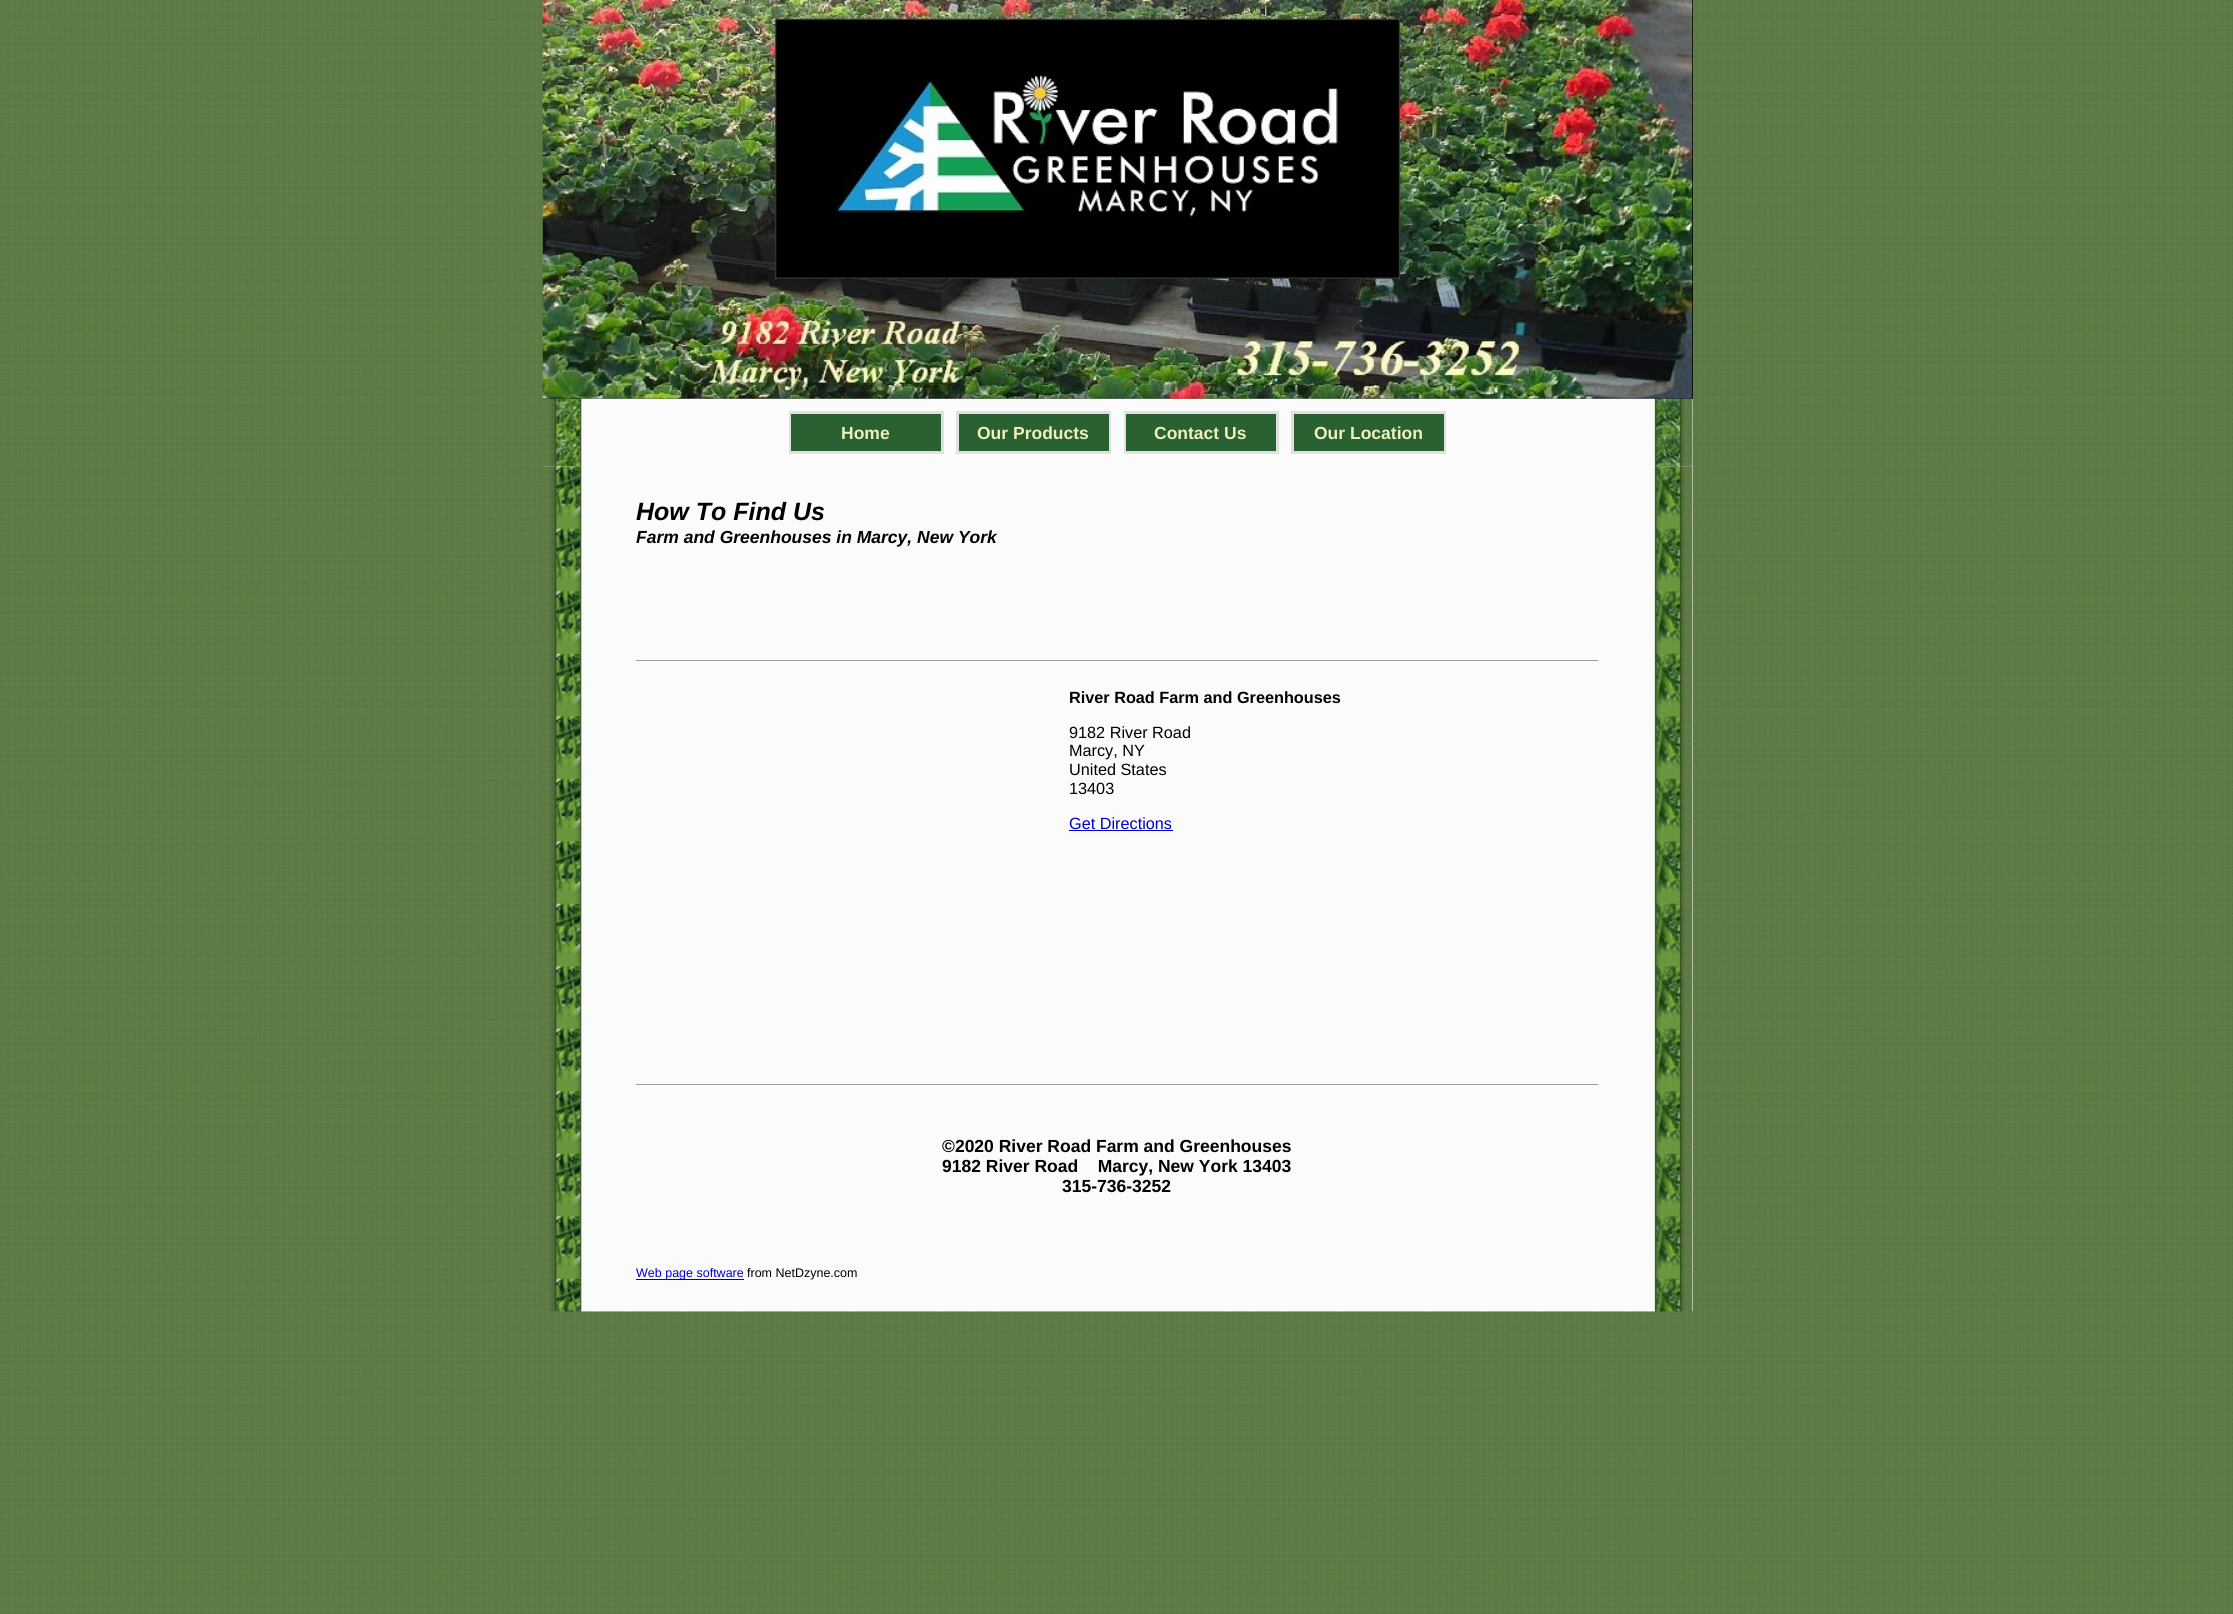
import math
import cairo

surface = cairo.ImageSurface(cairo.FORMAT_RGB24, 2233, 1614)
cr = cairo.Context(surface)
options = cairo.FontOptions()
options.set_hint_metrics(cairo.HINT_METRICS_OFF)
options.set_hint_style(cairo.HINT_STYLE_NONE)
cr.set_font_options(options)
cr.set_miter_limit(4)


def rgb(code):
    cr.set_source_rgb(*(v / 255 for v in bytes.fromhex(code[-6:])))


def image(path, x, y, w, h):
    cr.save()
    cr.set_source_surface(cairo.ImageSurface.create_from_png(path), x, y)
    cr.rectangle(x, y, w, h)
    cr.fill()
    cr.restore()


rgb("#ffffff")
cr.paint()
image("img/1.png", 0, 0, 2233, 1614)
rgb("#000000")
cr.rectangle(543, 0, 1150, 399)
cr.fill()
image("img/2.png", 542, 0, 1151, 399)
rgb("#f0f0f0")
cr.rectangle(1692, 399, 1, 67)
cr.fill()
image("img/4.png", 542, 466, 1151, 846)
rgb("#ffffff")
cr.rectangle(543, 466, 1150, 845)
cr.fill()
image("img/5.png", 543, 466, 1150, 846)
image("img/3.png", 542, 398, 1151, 69)
for x, y, w, h, color in [
    (789, 411, 155, 43, "#e0e0e0"),
    (791, 414, 150, 37, "#296132"),
    (956, 411, 155, 43, "#e0e0e0"),
    (959, 414, 150, 37, "#296132"),
    (1124, 411, 155, 43, "#e0e0e0"),
    (1126, 414, 150, 37, "#296132"),
    (1291, 411, 155, 43, "#e0e0e0"),
    (1294, 414, 150, 37, "#296132"),
    (636, 660, 963, 1, "#9f9f9f"),
    (1598, 660, 1, 1, "#eeeeee"),
    (1069, 830, 104, 1, "#0000cc"),
    (636, 1084, 963, 1, "#9f9f9f"),
    (1598, 1084, 1, 1, "#eeeeee"),
    (636, 1279, 108, 1, "#0000cc"),
]:
    rgb(color)
    cr.rectangle(x, y, w, h)
    cr.fill()
cr.select_font_face("Liberation Sans", cairo.FONT_SLANT_NORMAL, cairo.FONT_WEIGHT_BOLD)
cr.set_font_size(17.5)
rgb("#f0f0b8")
for x, y, s in [
    (841, 439, "Home"),
    (977, 439, "Our Products"),
    (1154, 439, "Contact Us"),
    (1314, 439, "Our Location"),
]:
    cr.move_to(x, y)
    cr.show_text(s)
cr.select_font_face("Liberation Sans", cairo.FONT_SLANT_ITALIC, cairo.FONT_WEIGHT_BOLD)
cr.set_font_size(25)
rgb("#000000")
cr.move_to(636, 520)
cr.show_text("How To Find Us")
cr.set_font_size(17.5)
cr.move_to(636, 543)
cr.show_text("Farm and Greenhouses in Marcy, New York")
cr.select_font_face("Liberation Sans", cairo.FONT_SLANT_NORMAL, cairo.FONT_WEIGHT_BOLD)
cr.set_font_size(16.25)
cr.move_to(1069, 703)
cr.show_text("River Road Farm and Greenhouses")
cr.select_font_face("Liberation Sans")
for x, y, s in [
    (1069, 738, "9182 River Road"),
    (1069, 756, "Marcy, NY"),
    (1069, 775, "United States"),
    (1069, 794, "13403"),
]:
    cr.move_to(x, y)
    cr.show_text(s)
rgb("#0000cc")
cr.move_to(1069, 829)
cr.show_text("Get Directions")
cr.select_font_face("Liberation Sans", cairo.FONT_SLANT_NORMAL, cairo.FONT_WEIGHT_BOLD)
cr.set_font_size(17.5)
rgb("#000000")
for x, y, s in [
    (942, 1152, "©2020 River Road Farm and Greenhouses"),
    (942, 1172, "9182 River Road    Marcy, New York 13403"),
    (1062, 1192, "315-736-3252"),
]:
    cr.move_to(x, y)
    cr.show_text(s)
cr.select_font_face("Liberation Sans")
cr.set_font_size(12.5)
rgb("#0000cc")
cr.move_to(636, 1277)
cr.show_text("Web page software")
rgb("#000000")
cr.move_to(747, 1277)
cr.show_text("from NetDzyne.com")
surface.write_to_png("page.png")
